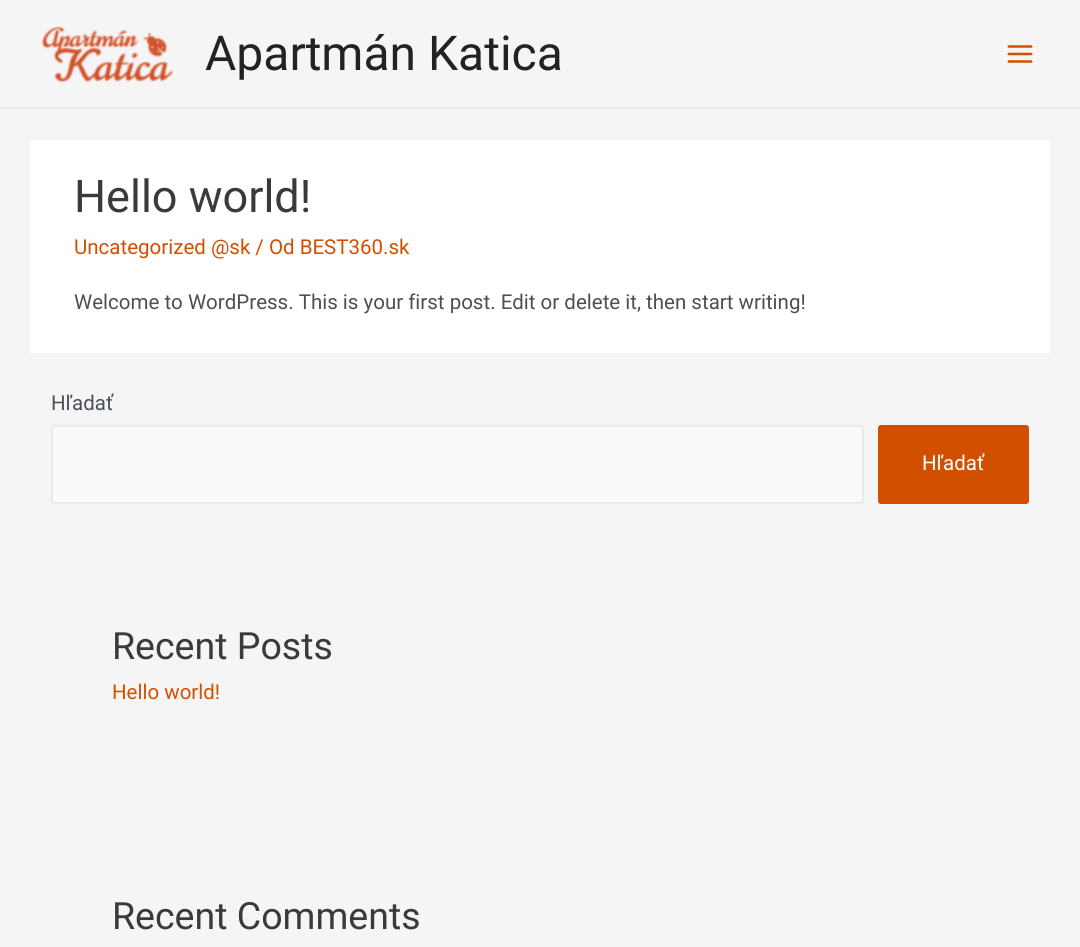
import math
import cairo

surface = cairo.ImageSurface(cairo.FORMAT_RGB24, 1080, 947)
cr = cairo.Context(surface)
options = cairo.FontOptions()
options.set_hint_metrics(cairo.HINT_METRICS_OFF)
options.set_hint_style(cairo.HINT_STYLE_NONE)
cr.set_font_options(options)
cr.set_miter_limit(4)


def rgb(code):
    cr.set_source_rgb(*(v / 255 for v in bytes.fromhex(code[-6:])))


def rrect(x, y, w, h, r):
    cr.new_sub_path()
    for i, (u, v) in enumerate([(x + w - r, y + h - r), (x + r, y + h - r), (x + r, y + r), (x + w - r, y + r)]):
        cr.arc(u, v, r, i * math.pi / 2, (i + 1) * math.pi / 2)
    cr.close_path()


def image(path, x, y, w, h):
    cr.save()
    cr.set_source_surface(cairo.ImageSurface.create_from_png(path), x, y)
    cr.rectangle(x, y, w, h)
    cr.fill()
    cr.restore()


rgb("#f5f5f5")
cr.paint()
rgb("#eaeaea")
cr.rectangle(0, 107, 1080, 2)
cr.fill()
image("img/1.png", 41, 26, 132, 57)
image("img/2.png", 1007, 45, 26, 18)
rgb("#ffffff")
cr.rectangle(30, 140, 1020, 213)
cr.fill()
rgb("#fafafa")
rrect(52, 426, 811, 77, 2)
cr.fill_preserve()
rgb("#eaeaea")
cr.stroke()
rgb("#d24f00")
rrect(878, 425, 151, 79, 3)
cr.fill()
cr.select_font_face("Roboto")
cr.set_font_size(48)
rgb("#222222")
cr.move_to(205, 70)
cr.show_text("Apartmán Katica")
cr.set_font_size(45)
rgb("#3a3a3a")
cr.move_to(74, 212)
cr.show_text("Hello world!")
cr.set_font_size(20.5)
rgb("#d24f00")
cr.move_to(74, 254)
cr.show_text("Uncategorized @sk / Od BEST360.sk")
rgb("#4b4f58")
cr.move_to(74, 309)
cr.show_text("Welcome to WordPress. This is your first post. Edit or delete it, then start writing!")
cr.move_to(51, 410)
cr.show_text("Hľadať")
rgb("#ffffff")
cr.move_to(922, 470)
cr.show_text("Hľadať")
cr.set_font_size(37.5)
rgb("#3a3a3a")
cr.move_to(112, 659)
cr.show_text("Recent Posts")
cr.set_font_size(20.5)
rgb("#d24f00")
cr.move_to(112, 699)
cr.show_text("Hello world!")
cr.set_font_size(37.5)
rgb("#3a3a3a")
cr.move_to(112, 929)
cr.show_text("Recent Comments")
surface.write_to_png("page.png")
